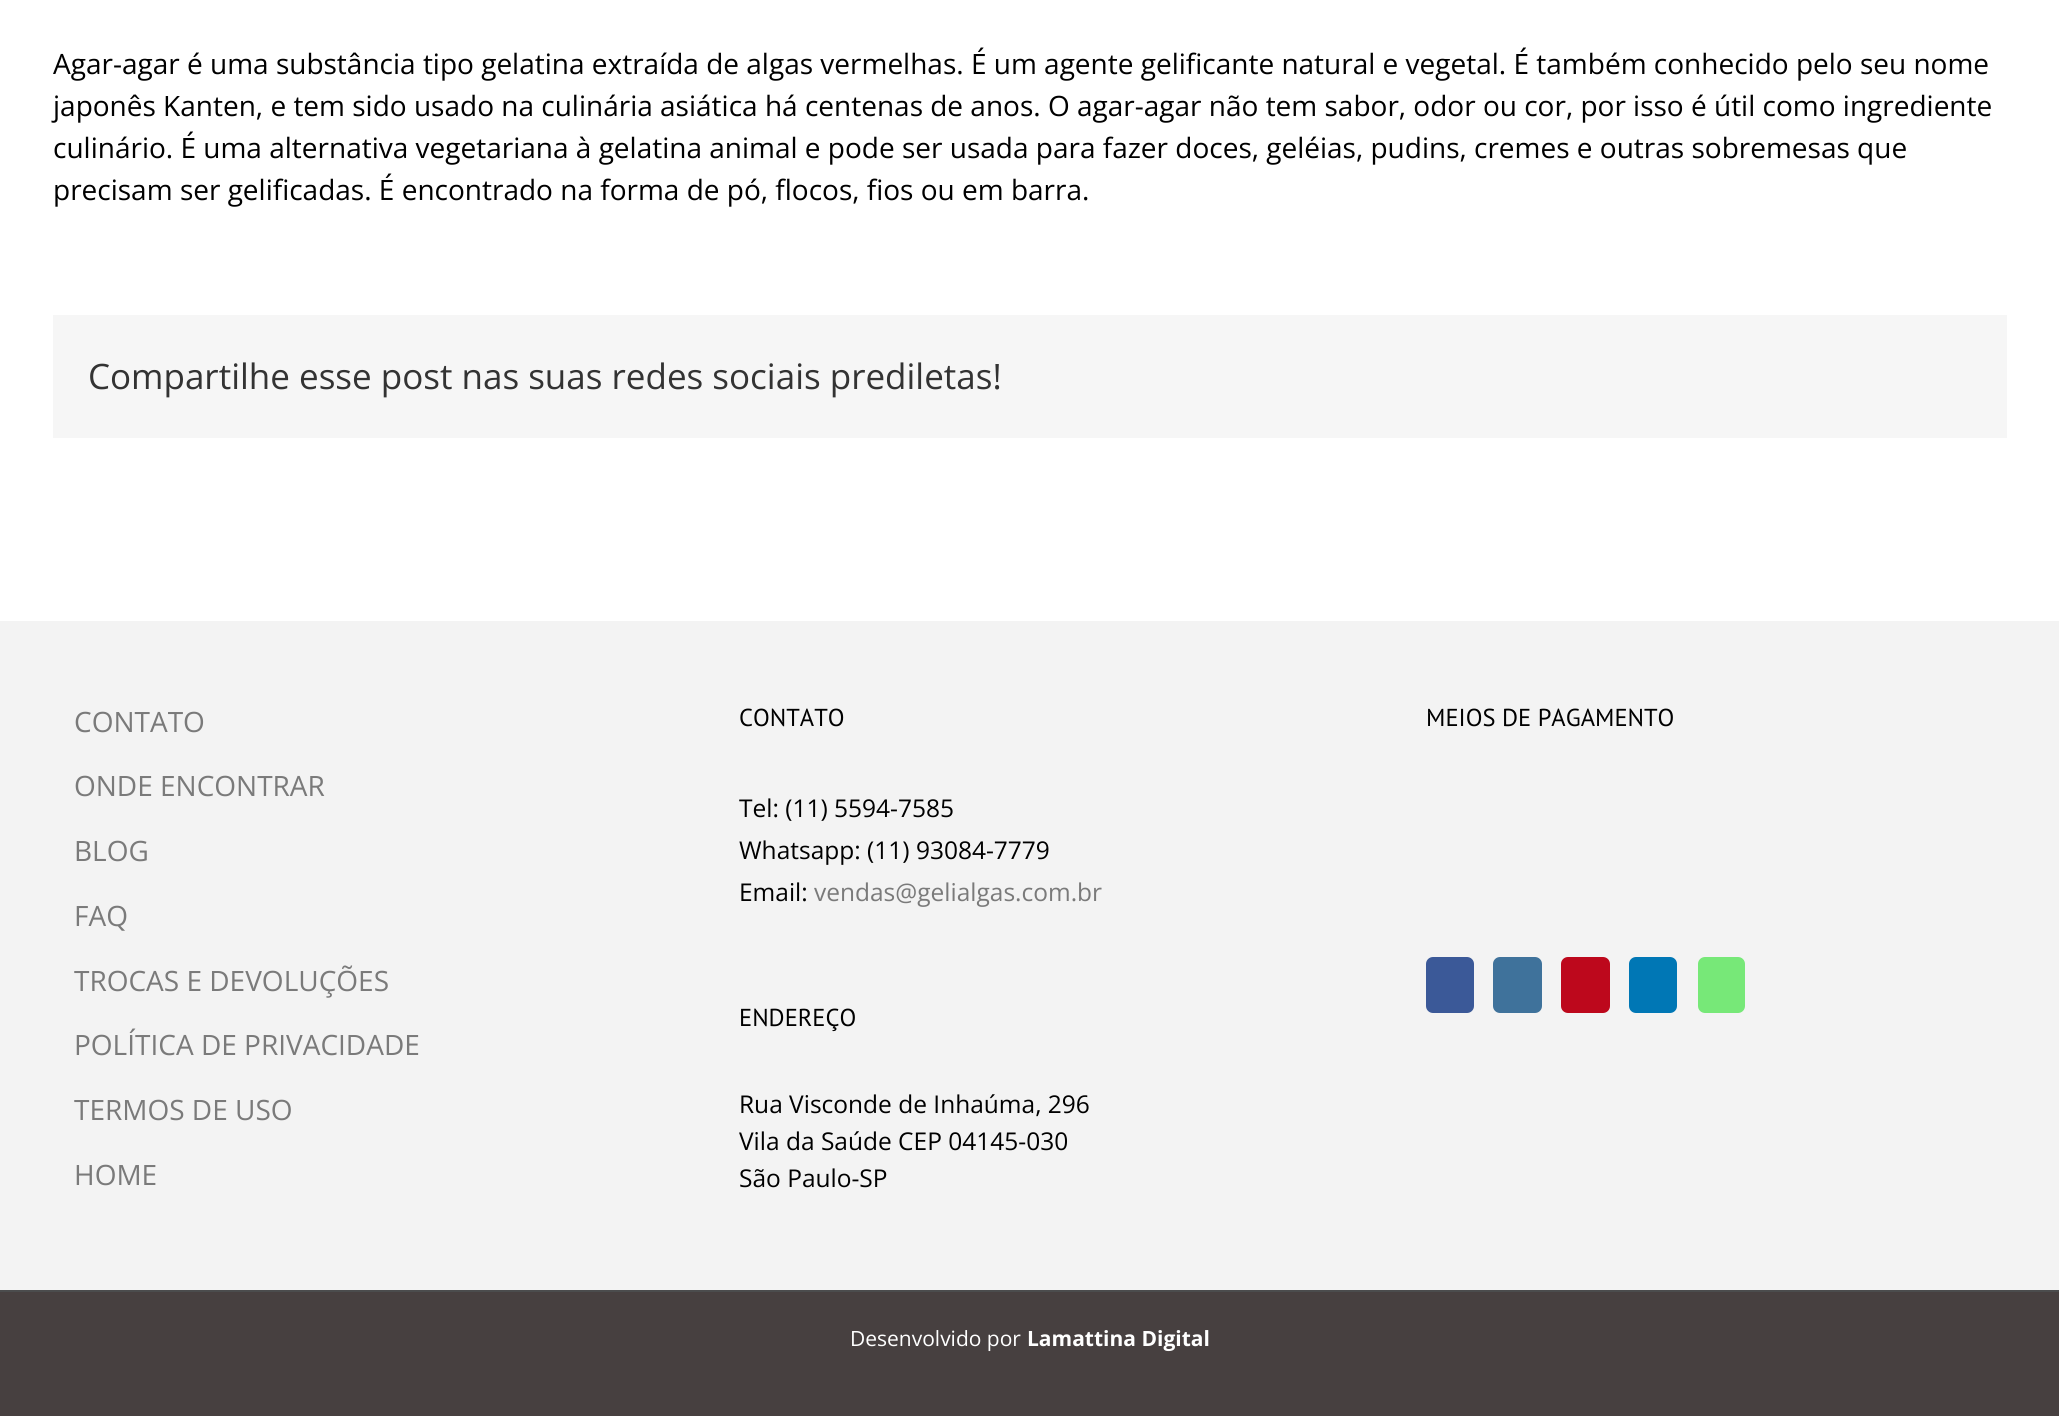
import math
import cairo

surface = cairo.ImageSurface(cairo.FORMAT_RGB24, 2059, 1416)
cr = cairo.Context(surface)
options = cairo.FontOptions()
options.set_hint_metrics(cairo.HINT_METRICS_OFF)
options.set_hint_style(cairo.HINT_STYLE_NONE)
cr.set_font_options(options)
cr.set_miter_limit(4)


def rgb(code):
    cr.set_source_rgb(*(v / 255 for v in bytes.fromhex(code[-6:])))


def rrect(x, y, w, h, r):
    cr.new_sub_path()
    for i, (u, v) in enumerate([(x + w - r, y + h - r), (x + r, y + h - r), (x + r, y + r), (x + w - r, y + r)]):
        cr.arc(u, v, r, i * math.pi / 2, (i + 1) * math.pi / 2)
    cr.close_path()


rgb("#ffffff")
cr.paint()
rgb("#f6f6f6")
cr.rectangle(53, 315, 1954, 123)
cr.fill()
rgb("#f3f3f3")
cr.rectangle(0, 621, 2059, 669)
cr.fill()
rgb("#3b5998")
rrect(1426, 957, 48, 56, 7)
cr.fill()
rgb("#3f729b")
rrect(1493, 957, 49, 56, 7)
cr.fill()
rgb("#bd081c")
rrect(1561, 957, 49, 56, 7)
cr.fill()
rgb("#0077b5")
rrect(1629, 957, 48, 56, 7)
cr.fill()
rgb("#77e878")
rrect(1698, 957, 47, 56, 7)
cr.fill()
rgb("#474040")
cr.rectangle(0, 1292, 2059, 124)
cr.fill()
rgb("#4b4c4d")
cr.rectangle(0, 1290, 2059, 2)
cr.fill()
cr.select_font_face("Open Sans")
cr.set_font_size(28)
rgb("#000000")
for x, y, s in [
    (53, 74, "Agar-agar é uma substância tipo gelatina extraída de algas vermelhas. É um agente gelificante natural e vegetal. É também conhecido pelo seu nome"),
    (53, 116, "japonês Kanten, e tem sido usado na culinária asiática há centenas de anos. O agar-agar não tem sabor, odor ou cor, por isso é útil como ingrediente"),
    (53, 158, "culinário. É uma alternativa vegetariana à gelatina animal e pode ser usada para fazer doces, geléias, pudins, cremes e outras sobremesas que"),
    (53, 200, "precisam ser gelificadas. É encontrado na forma de pó, flocos, fios ou em barra."),
]:
    cr.move_to(x, y)
    cr.show_text(s)
cr.set_font_size(35)
rgb("#333333")
cr.move_to(88, 389)
cr.show_text("Compartilhe esse post nas suas redes sociais prediletas!")
cr.set_font_size(28)
rgb("#7a7a7a")
for x, y, s in [
    (74, 732, "CONTATO"),
    (74, 796, "ONDE ENCONTRAR"),
    (74, 861, "BLOG"),
    (74, 926, "FAQ"),
    (74, 991, "TROCAS E DEVOLUÇÕES"),
    (74, 1055, "POLÍTICA DE PRIVACIDADE"),
    (74, 1120, "TERMOS DE USO"),
    (74, 1185, "HOME"),
]:
    cr.move_to(x, y)
    cr.show_text(s)
cr.select_font_face("PT Sans")
cr.set_font_size(24.5)
rgb("#000000")
cr.move_to(739, 726)
cr.show_text("CONTATO")
cr.select_font_face("Open Sans")
for x, y, s in [
    (739, 817, "Tel: (11) 5594-7585"),
    (739, 859, "Whatsapp: (11) 93084-7779"),
    (739, 901, "Email:"),
]:
    cr.move_to(x, y)
    cr.show_text(s)
rgb("#7a7a7a")
cr.move_to(814, 901)
cr.show_text("vendas@gelialgas.com.br")
cr.select_font_face("PT Sans")
rgb("#000000")
cr.move_to(739, 1026)
cr.show_text("ENDEREÇO")
cr.select_font_face("Open Sans")
for x, y, s in [
    (739, 1113, "Rua Visconde de Inhaúma, 296"),
    (739, 1150, "Vila da Saúde CEP 04145-030"),
    (739, 1187, "São Paulo-SP"),
]:
    cr.move_to(x, y)
    cr.show_text(s)
cr.select_font_face("PT Sans")
cr.move_to(1426, 726)
cr.show_text("MEIOS DE PAGAMENTO")
cr.select_font_face("Open Sans")
cr.set_font_size(21)
rgb("#ffffff")
cr.move_to(850, 1346)
cr.show_text("Desenvolvido por")
cr.select_font_face("Open Sans", cairo.FONT_SLANT_NORMAL, cairo.FONT_WEIGHT_BOLD)
cr.move_to(1027, 1346)
cr.show_text("Lamattina Digital")
surface.write_to_png("page.png")
